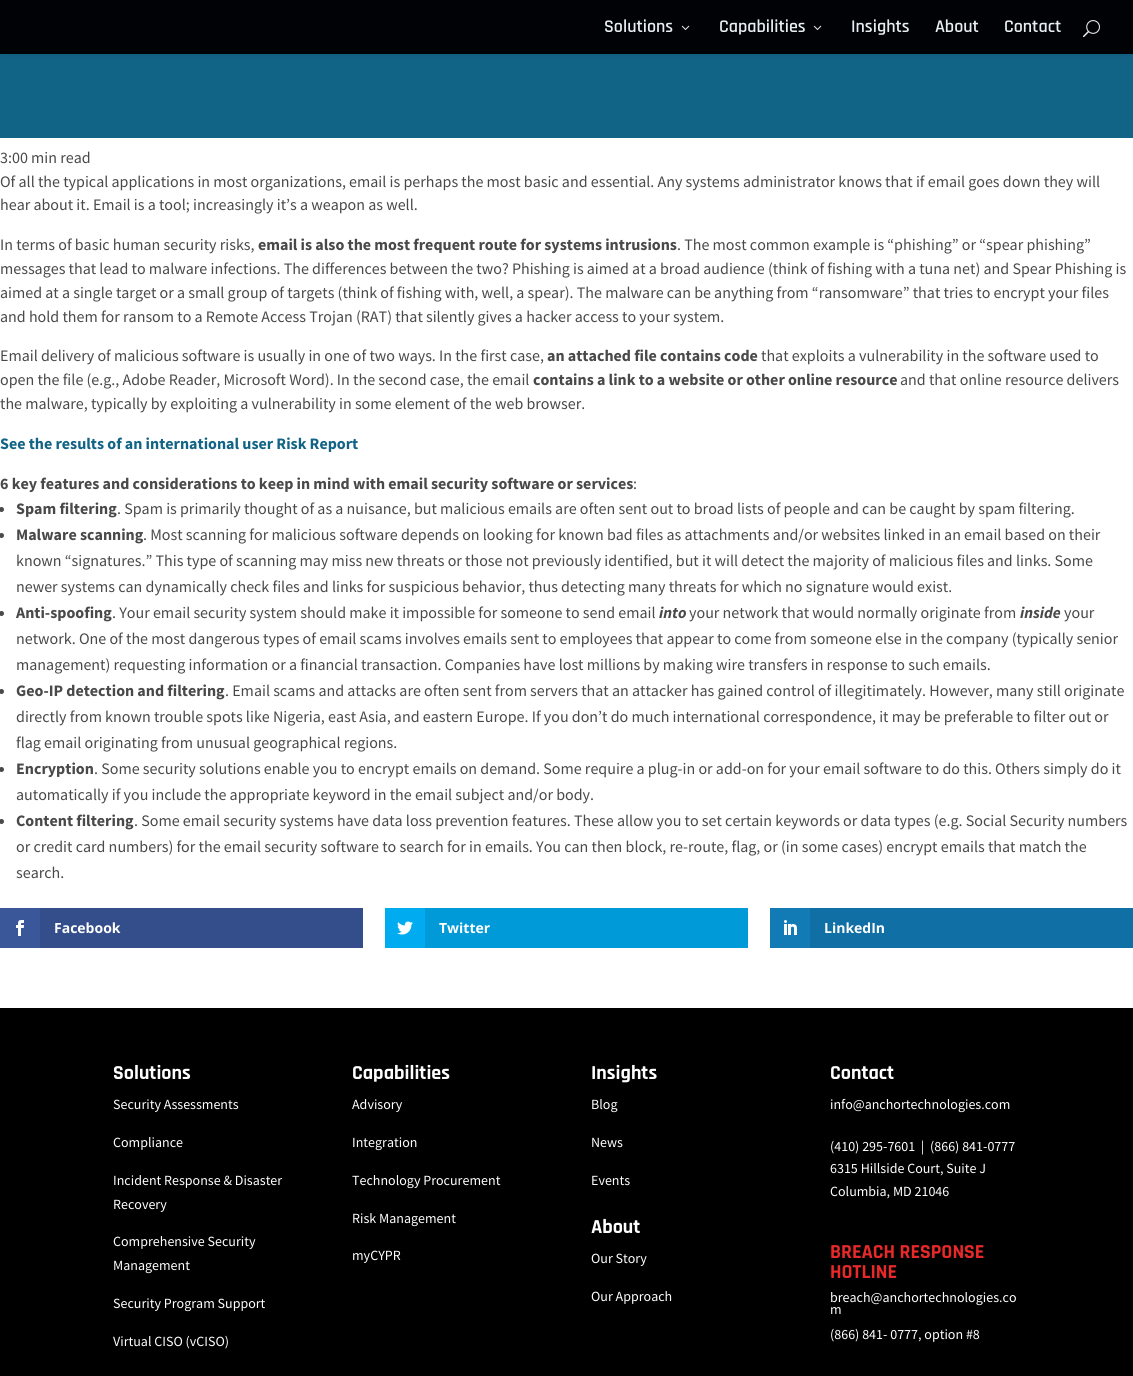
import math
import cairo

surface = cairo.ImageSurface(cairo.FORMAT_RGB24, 1133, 1376)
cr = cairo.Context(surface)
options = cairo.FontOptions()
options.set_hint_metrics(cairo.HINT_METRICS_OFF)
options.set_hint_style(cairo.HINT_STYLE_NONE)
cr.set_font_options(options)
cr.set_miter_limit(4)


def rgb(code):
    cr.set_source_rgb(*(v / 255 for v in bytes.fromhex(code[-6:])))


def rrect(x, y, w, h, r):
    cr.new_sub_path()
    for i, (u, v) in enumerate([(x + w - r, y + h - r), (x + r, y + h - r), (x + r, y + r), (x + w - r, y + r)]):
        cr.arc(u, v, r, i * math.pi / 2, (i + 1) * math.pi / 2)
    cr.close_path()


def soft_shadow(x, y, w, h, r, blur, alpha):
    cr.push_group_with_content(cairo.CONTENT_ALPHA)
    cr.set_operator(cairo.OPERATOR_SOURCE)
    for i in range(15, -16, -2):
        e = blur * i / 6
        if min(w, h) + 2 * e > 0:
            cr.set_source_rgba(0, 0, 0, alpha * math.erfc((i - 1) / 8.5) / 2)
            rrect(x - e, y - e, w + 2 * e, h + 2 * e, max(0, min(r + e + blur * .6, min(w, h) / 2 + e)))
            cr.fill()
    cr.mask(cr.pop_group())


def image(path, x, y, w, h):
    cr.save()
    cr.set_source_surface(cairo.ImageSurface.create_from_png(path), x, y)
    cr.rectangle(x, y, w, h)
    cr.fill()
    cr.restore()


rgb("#ffffff")
cr.paint()
rgb("#126487")
cr.rectangle(0, 54, 1133, 84)
cr.fill()
rgb("#000000")
soft_shadow(0, 0, 1133, 54, 0, 3.5, 0.1)
rgb("#000206")
cr.rectangle(0, 0, 1133, 54)
cr.fill()
image("img/1.png", 681, 25, 9, 5)
image("img/1.png", 813, 25, 9, 5)
image("img/2.png", 1083, 20, 17, 18)
rgb("#494949")
cr.arc(1.5, 509.5, 2.5, 0, 2 * math.pi)
cr.fill()
cr.arc(1.5, 535.5, 2.5, 0, 2 * math.pi)
cr.fill()
cr.arc(1.5, 613.5, 2.5, 0, 2 * math.pi)
cr.fill()
cr.arc(1.5, 691.5, 2.5, 0, 2 * math.pi)
cr.fill()
cr.arc(1.5, 769.5, 2.5, 0, 2 * math.pi)
cr.fill()
cr.arc(1.5, 821.5, 2.5, 0, 2 * math.pi)
cr.fill()
rgb("#3a579a")
cr.rectangle(0, 908, 40, 40)
cr.fill()
image("img/3.png", 16, 920, 8, 16)
rgb("#344e8b")
cr.rectangle(40, 908, 323, 40)
cr.fill()
rgb("#00abf0")
cr.rectangle(385, 908, 40, 40)
cr.fill()
image("img/4.png", 397, 921, 16, 14)
rgb("#009ad8")
cr.rectangle(425, 908, 323, 40)
cr.fill()
rgb("#127bb6")
cr.rectangle(770, 908, 40, 40)
cr.fill()
image("img/5.png", 784, 920, 13, 15)
rgb("#106fa4")
cr.rectangle(810, 908, 323, 40)
cr.fill()
rgb("#000000")
cr.rectangle(0, 1008, 1133, 368)
cr.fill()
cr.select_font_face("Rajdhani SemiBold")
cr.set_font_size(18)
rgb("#e7eff3")
for x, y, s in [
    (604, 32, "Solutions"),
    (719, 32, "Capabilities"),
    (851, 32, "Insights"),
    (935, 32, "About"),
    (1004, 32, "Contact"),
]:
    cr.move_to(x, y)
    cr.show_text(s)
cr.select_font_face("Source Sans Pro")
cr.set_font_size(16)
rgb("#494949")
for x, y, s in [
    (0, 163, "3:00 min read"),
    (0, 187, "Of all the typical applications in most organizations, email is perhaps the most basic and essential. Any systems administrator knows that if email goes down they will"),
    (0, 210, "hear about it. Email is a tool; increasingly it’s a weapon as well."),
    (0, 250, "In terms of basic human security risks,"),
]:
    cr.move_to(x, y)
    cr.show_text(s)
cr.select_font_face("Source Sans Pro", cairo.FONT_SLANT_NORMAL, cairo.FONT_WEIGHT_BOLD)
cr.move_to(258, 250)
cr.show_text("email is also the most frequent route for systems intrusions")
cr.select_font_face("Source Sans Pro")
for x, y, s in [
    (677, 250, ". The most common example is “phishing” or “spear phishing”"),
    (0, 274, "messages that lead to malware infections. The differences between the two? Phishing is aimed at a broad audience (think of fishing with a tuna net) and Spear Phishing is"),
    (0, 298, "aimed at a single target or a small group of targets (think of fishing with, well, a spear). The malware can be anything from “ransomware” that tries to encrypt your files"),
    (0, 322, "and hold them for ransom to a Remote Access Trojan (RAT) that silently gives a hacker access to your system."),
    (0, 361, "Email delivery of malicious software is usually in one of two ways. In the first case,"),
]:
    cr.move_to(x, y)
    cr.show_text(s)
cr.select_font_face("Source Sans Pro", cairo.FONT_SLANT_NORMAL, cairo.FONT_WEIGHT_BOLD)
cr.move_to(547, 361)
cr.show_text("an attached file contains code")
cr.select_font_face("Source Sans Pro")
cr.move_to(761, 361)
cr.show_text("that exploits a vulnerability in the software used to")
cr.move_to(0, 385)
cr.show_text("open the file (e.g., Adobe Reader, Microsoft Word). In the second case, the email")
cr.select_font_face("Source Sans Pro", cairo.FONT_SLANT_NORMAL, cairo.FONT_WEIGHT_BOLD)
cr.move_to(533, 385)
cr.show_text("contains a link to a website or other online resource")
cr.select_font_face("Source Sans Pro")
cr.move_to(900, 385)
cr.show_text("and that online resource delivers")
cr.move_to(0, 409)
cr.show_text("the malware, typically by exploiting a vulnerability in some element of the web browser.")
cr.select_font_face("Source Sans Pro", cairo.FONT_SLANT_NORMAL, cairo.FONT_WEIGHT_BOLD)
rgb("#126487")
cr.move_to(0, 449)
cr.show_text("See the results of an international user Risk Report")
rgb("#494949")
cr.move_to(0, 489)
cr.show_text("6 key features and considerations to keep in mind with email security software or services")
cr.select_font_face("Source Sans Pro")
cr.move_to(633, 489)
cr.show_text(":")
cr.select_font_face("Source Sans Pro", cairo.FONT_SLANT_NORMAL, cairo.FONT_WEIGHT_BOLD)
cr.move_to(16, 514)
cr.show_text("Spam filtering")
cr.select_font_face("Source Sans Pro")
cr.move_to(117, 514)
cr.show_text(". Spam is primarily thought of as a nuisance, but malicious emails are often sent out to broad lists of people and can be caught by spam filtering.")
cr.select_font_face("Source Sans Pro", cairo.FONT_SLANT_NORMAL, cairo.FONT_WEIGHT_BOLD)
cr.move_to(16, 540)
cr.show_text("Malware scanning")
cr.select_font_face("Source Sans Pro")
for x, y, s in [
    (143, 540, ". Most scanning for malicious software depends on looking for known bad files as attachments and/or websites linked in an email based on their"),
    (16, 566, "known “signatures.” This type of scanning may miss new threats or those not previously identified, but it will detect the majority of malicious files and links. Some"),
    (16, 592, "newer systems can dynamically check files and links for suspicious behavior, thus detecting many threats for which no signature would exist."),
]:
    cr.move_to(x, y)
    cr.show_text(s)
cr.select_font_face("Source Sans Pro", cairo.FONT_SLANT_NORMAL, cairo.FONT_WEIGHT_BOLD)
cr.move_to(16, 618)
cr.show_text("Anti-spoofing")
cr.select_font_face("Source Sans Pro")
cr.move_to(112, 618)
cr.show_text(". Your email security system should make it impossible for someone to send email")
cr.select_font_face("Source Sans Pro", cairo.FONT_SLANT_ITALIC, cairo.FONT_WEIGHT_BOLD)
cr.move_to(659, 618)
cr.show_text("into")
cr.select_font_face("Source Sans Pro")
cr.move_to(689, 618)
cr.show_text("your network that would normally originate from")
cr.select_font_face("Source Sans Pro", cairo.FONT_SLANT_ITALIC, cairo.FONT_WEIGHT_BOLD)
cr.move_to(1020, 618)
cr.show_text("inside")
cr.select_font_face("Source Sans Pro")
for x, y, s in [
    (1064, 618, "your"),
    (16, 644, "network. One of the most dangerous types of email scams involves emails sent to employees that appear to come from someone else in the company (typically senior"),
    (16, 670, "management) requesting information or a financial transaction. Companies have lost millions by making wire transfers in response to such emails."),
]:
    cr.move_to(x, y)
    cr.show_text(s)
cr.select_font_face("Source Sans Pro", cairo.FONT_SLANT_NORMAL, cairo.FONT_WEIGHT_BOLD)
cr.move_to(16, 696)
cr.show_text("Geo-IP detection and filtering")
cr.select_font_face("Source Sans Pro")
for x, y, s in [
    (225, 696, ". Email scams and attacks are often sent from servers that an attacker has gained control of illegitimately. However, many still originate"),
    (16, 722, "directly from known trouble spots like Nigeria, east Asia, and eastern Europe. If you don’t do much international correspondence, it may be preferable to filter out or"),
    (16, 748, "flag email originating from unusual geographical regions."),
]:
    cr.move_to(x, y)
    cr.show_text(s)
cr.select_font_face("Source Sans Pro", cairo.FONT_SLANT_NORMAL, cairo.FONT_WEIGHT_BOLD)
cr.move_to(16, 774)
cr.show_text("Encryption")
cr.select_font_face("Source Sans Pro")
cr.move_to(94, 774)
cr.show_text(". Some security solutions enable you to encrypt emails on demand. Some require a plug-in or add-on for your email software to do this. Others simply do it")
cr.move_to(16, 800)
cr.show_text("automatically if you include the appropriate keyword in the email subject and/or body.")
cr.select_font_face("Source Sans Pro", cairo.FONT_SLANT_NORMAL, cairo.FONT_WEIGHT_BOLD)
cr.move_to(16, 826)
cr.show_text("Content filtering")
cr.select_font_face("Source Sans Pro")
for x, y, s in [
    (134, 826, ". Some email security systems have data loss prevention features. These allow you to set certain keywords or data types (e.g. Social Security numbers"),
    (16, 852, "or credit card numbers) for the email security software to search for in emails. You can then block, re-route, flag, or (in some cases) encrypt emails that match the"),
    (16, 878, "search."),
]:
    cr.move_to(x, y)
    cr.show_text(s)
cr.select_font_face("Open Sans", cairo.FONT_SLANT_NORMAL, cairo.FONT_WEIGHT_BOLD)
cr.set_font_size(14)
rgb("#ffffff")
for x, y, s in [
    (54, 933, "Facebook"),
    (439, 933, "Twitter"),
    (824, 933, "LinkedIn"),
]:
    cr.move_to(x, y)
    cr.show_text(s)
cr.select_font_face("Rajdhani", cairo.FONT_SLANT_NORMAL, cairo.FONT_WEIGHT_BOLD)
cr.set_font_size(20)
cr.move_to(113, 1079)
cr.show_text("Solutions")
cr.select_font_face("Source Sans Pro")
cr.set_font_size(14)
for x, y, s in [
    (113, 1109, "Security Assessments"),
    (113, 1147, "Compliance"),
    (113, 1185, "Incident Response & Disaster"),
    (113, 1209, "Recovery"),
    (113, 1246, "Comprehensive Security"),
    (113, 1270, "Management"),
    (113, 1308, "Security Program Support"),
    (113, 1346, "Virtual CISO (vCISO)"),
]:
    cr.move_to(x, y)
    cr.show_text(s)
cr.select_font_face("Rajdhani", cairo.FONT_SLANT_NORMAL, cairo.FONT_WEIGHT_BOLD)
cr.set_font_size(20)
cr.move_to(352, 1079)
cr.show_text("Capabilities")
cr.select_font_face("Source Sans Pro")
cr.set_font_size(14)
for x, y, s in [
    (352, 1109, "Advisory"),
    (352, 1147, "Integration"),
    (352, 1185, "Technology Procurement"),
    (352, 1223, "Risk Management"),
    (352, 1260, "myCYPR"),
]:
    cr.move_to(x, y)
    cr.show_text(s)
cr.select_font_face("Rajdhani", cairo.FONT_SLANT_NORMAL, cairo.FONT_WEIGHT_BOLD)
cr.set_font_size(20)
cr.move_to(591, 1079)
cr.show_text("Insights")
cr.select_font_face("Source Sans Pro")
cr.set_font_size(14)
for x, y, s in [
    (591, 1109, "Blog"),
    (591, 1147, "News"),
    (591, 1185, "Events"),
]:
    cr.move_to(x, y)
    cr.show_text(s)
cr.select_font_face("Rajdhani", cairo.FONT_SLANT_NORMAL, cairo.FONT_WEIGHT_BOLD)
cr.set_font_size(20)
cr.move_to(591, 1233)
cr.show_text("About")
cr.select_font_face("Source Sans Pro")
cr.set_font_size(14)
cr.move_to(591, 1263)
cr.show_text("Our Story")
cr.move_to(591, 1301)
cr.show_text("Our Approach")
cr.select_font_face("Rajdhani", cairo.FONT_SLANT_NORMAL, cairo.FONT_WEIGHT_BOLD)
cr.set_font_size(20)
cr.move_to(830, 1079)
cr.show_text("Contact")
cr.select_font_face("Source Sans Pro")
cr.set_font_size(14)
for x, y, s in [
    (830, 1109, "info@anchortechnologies.com"),
    (830, 1151, "(410) 295-7601  |"),
    (930, 1151, "(866) 841-0777"),
    (830, 1173, "6315 Hillside Court, Suite J"),
    (830, 1196, "Columbia, MD 21046"),
]:
    cr.move_to(x, y)
    cr.show_text(s)
cr.select_font_face("Rajdhani", cairo.FONT_SLANT_NORMAL, cairo.FONT_WEIGHT_BOLD)
cr.set_font_size(20)
rgb("#e82929")
cr.move_to(830, 1258)
cr.show_text("BREACH RESPONSE")
cr.move_to(830, 1278)
cr.show_text("HOTLINE")
cr.select_font_face("Source Sans Pro")
cr.set_font_size(14)
rgb("#ffffff")
for x, y, s in [
    (830, 1302, "breach@anchortechnologies.co"),
    (830, 1314, "m"),
    (830, 1339, "(866) 841- 0777, option #8"),
]:
    cr.move_to(x, y)
    cr.show_text(s)
surface.write_to_png("page.png")
